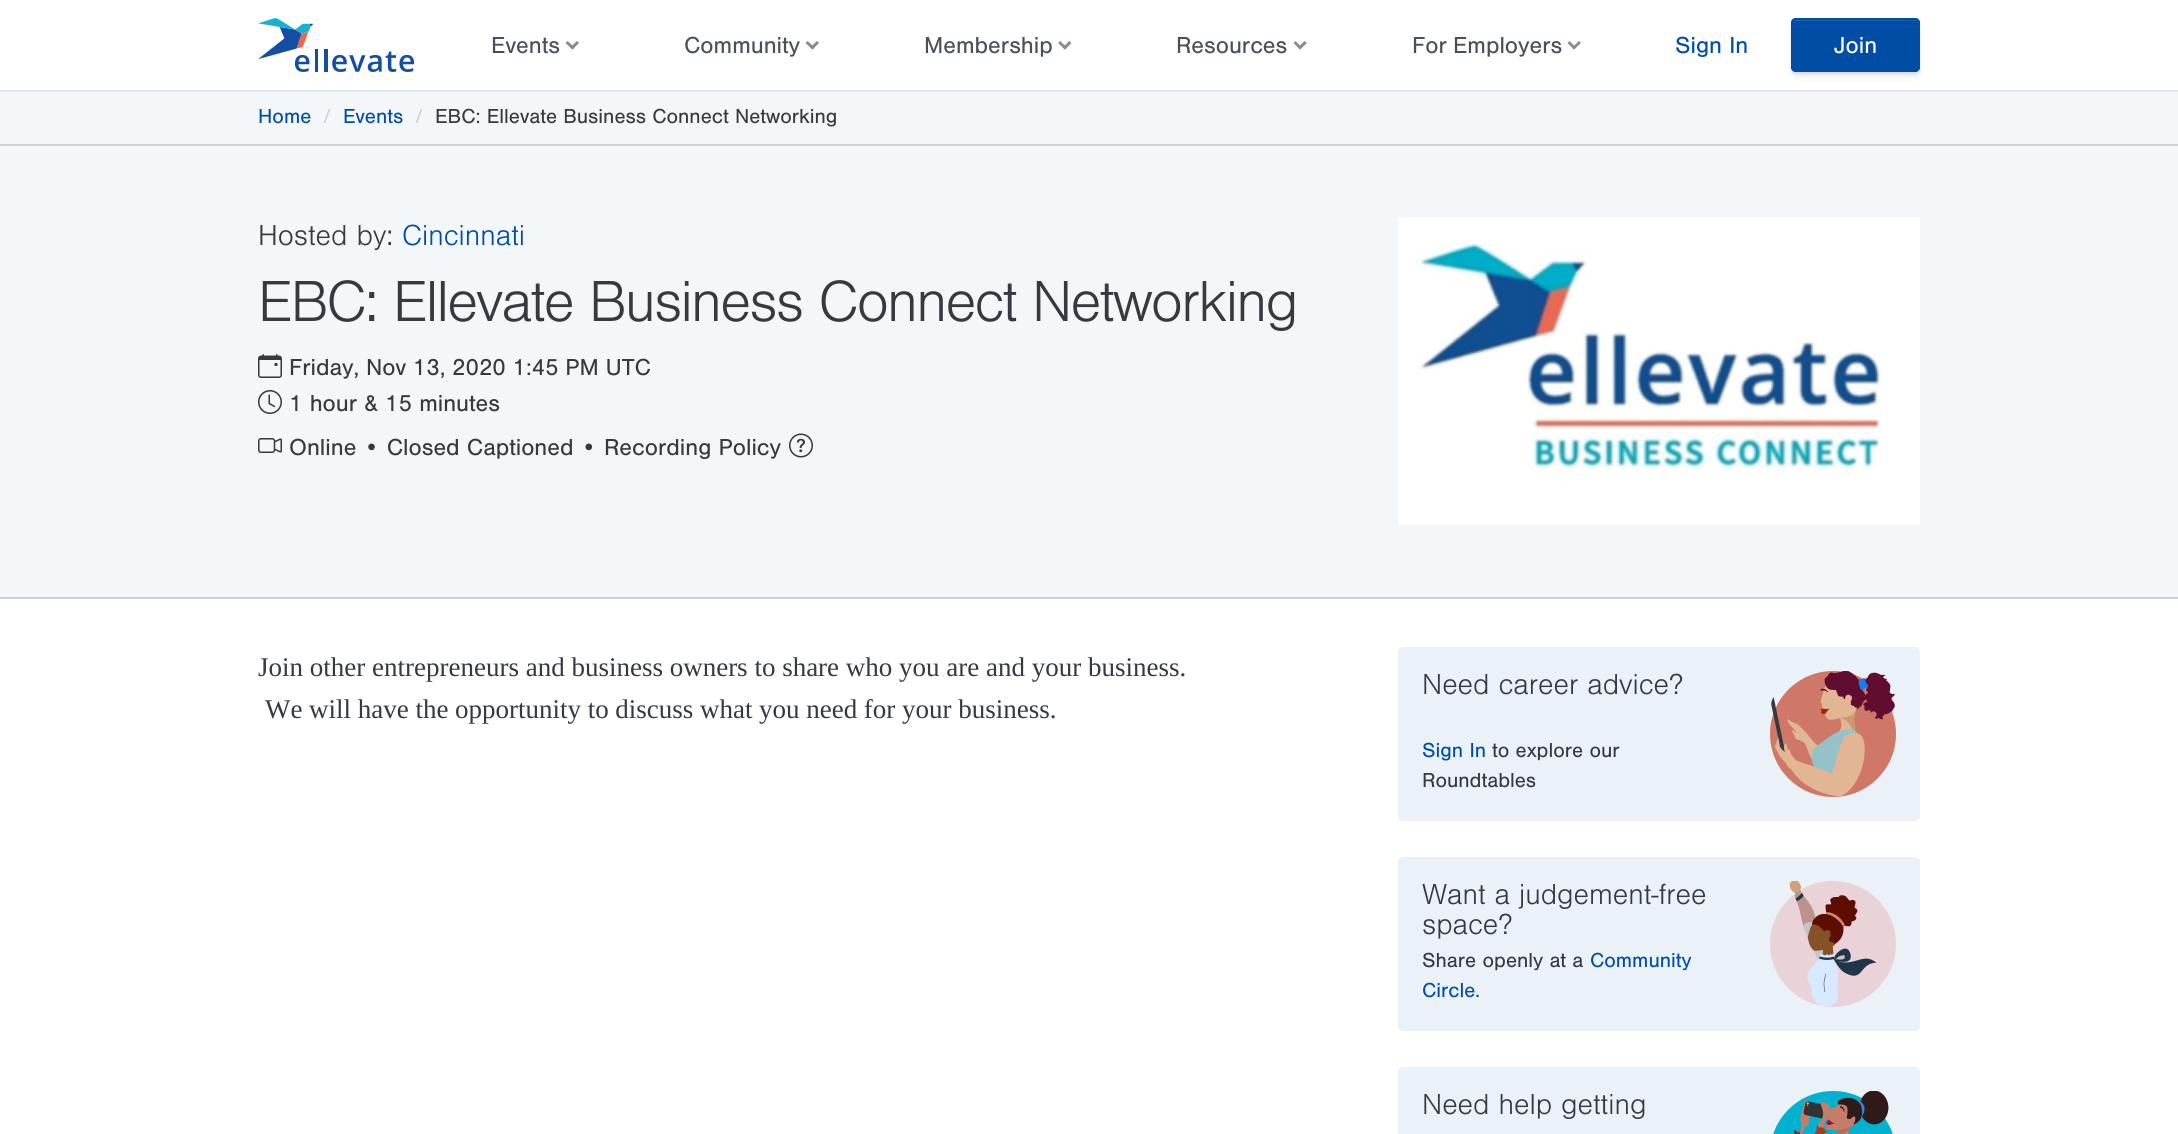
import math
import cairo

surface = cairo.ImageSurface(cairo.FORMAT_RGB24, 2178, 1134)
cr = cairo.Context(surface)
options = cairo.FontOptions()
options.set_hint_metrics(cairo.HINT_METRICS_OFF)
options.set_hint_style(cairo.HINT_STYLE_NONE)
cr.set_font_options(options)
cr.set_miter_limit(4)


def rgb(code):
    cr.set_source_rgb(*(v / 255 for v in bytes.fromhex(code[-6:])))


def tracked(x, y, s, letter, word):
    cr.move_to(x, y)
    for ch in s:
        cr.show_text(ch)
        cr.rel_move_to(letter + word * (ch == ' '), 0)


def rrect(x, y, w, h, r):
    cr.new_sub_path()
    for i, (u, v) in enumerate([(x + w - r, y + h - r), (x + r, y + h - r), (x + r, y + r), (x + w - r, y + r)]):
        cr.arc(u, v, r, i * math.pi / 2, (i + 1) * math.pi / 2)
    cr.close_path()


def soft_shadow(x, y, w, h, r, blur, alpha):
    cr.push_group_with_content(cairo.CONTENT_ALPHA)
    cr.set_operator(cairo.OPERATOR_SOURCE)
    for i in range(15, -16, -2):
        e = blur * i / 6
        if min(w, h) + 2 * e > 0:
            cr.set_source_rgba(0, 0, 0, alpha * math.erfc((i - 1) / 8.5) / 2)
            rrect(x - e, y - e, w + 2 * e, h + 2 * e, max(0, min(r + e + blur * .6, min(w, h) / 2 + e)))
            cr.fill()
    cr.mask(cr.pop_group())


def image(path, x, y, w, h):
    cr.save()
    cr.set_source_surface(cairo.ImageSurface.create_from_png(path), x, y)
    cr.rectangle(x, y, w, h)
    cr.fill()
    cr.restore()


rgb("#ffffff")
cr.paint()
rgb("#f4f7f9")
cr.rectangle(0, 90, 2178, 54)
cr.fill()
cr.save()
cr.rectangle(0, 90, 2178, 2)
cr.clip()
rgb("#000000")
soft_shadow(0, 0, 2178, 90, 0, 1.5, 0.25)
cr.restore()
image("img/1.png", 258, 18, 156, 54)
rgb("#878c90")
cr.new_path()
cr.move_to(579, 43)
cr.line_to(572.5, 49.5)
cr.line_to(570, 47.5)
cr.line_to(577, 41)
cr.close_path()
cr.fill()
cr.new_path()
cr.move_to(574.5, 47.5)
cr.line_to(572.5, 49.5)
cr.line_to(565.5, 43)
cr.line_to(567.5, 41)
cr.close_path()
cr.fill()
cr.new_path()
cr.move_to(819, 43)
cr.line_to(812.5, 49.5)
cr.line_to(810, 47.5)
cr.line_to(817, 41)
cr.close_path()
cr.fill()
cr.new_path()
cr.move_to(814.5, 47.5)
cr.line_to(812.5, 49.5)
cr.line_to(805.5, 43)
cr.line_to(807.5, 41)
cr.close_path()
cr.fill()
cr.new_path()
cr.move_to(1071.5, 43)
cr.line_to(1065, 49.5)
cr.line_to(1062.5, 47.5)
cr.line_to(1069.5, 41)
cr.close_path()
cr.fill()
cr.new_path()
cr.move_to(1067, 47.5)
cr.line_to(1065, 49.5)
cr.line_to(1058, 43)
cr.line_to(1060, 41)
cr.close_path()
cr.fill()
cr.new_path()
cr.move_to(1307, 43)
cr.line_to(1300, 49.5)
cr.line_to(1298, 47.5)
cr.line_to(1304.5, 41)
cr.close_path()
cr.fill()
cr.new_path()
cr.move_to(1302, 47.5)
cr.line_to(1300, 49.5)
cr.line_to(1293.5, 43)
cr.line_to(1295.5, 41)
cr.close_path()
cr.fill()
cr.new_path()
cr.move_to(1581, 43)
cr.line_to(1574, 49.5)
cr.line_to(1572, 47.5)
cr.line_to(1579, 41)
cr.close_path()
cr.fill()
cr.new_path()
cr.move_to(1576, 47.5)
cr.line_to(1574, 49.5)
cr.line_to(1567.5, 43)
cr.line_to(1569.5, 41)
cr.close_path()
cr.fill()
rgb("#000000")
soft_shadow(1791, 24, 129, 54, 5, 3, 0.05)
soft_shadow(1791, 21, 129, 54, 5, 1.5, 0.05)
soft_shadow(1791, 20, 129, 54, 5, 1, 0.05)
rgb("#004da5")
rrect(1791, 18, 129, 54, 5)
cr.fill()
rgb("#1a5fae")
cr.new_path()
cr.move_to(1796, 21)
cr.line_to(1896, 21)
cr.curve_to(1922, 21, 1918, 16, 1918, 39)
cr.line_to(1918, 70)
cr.curve_to(1919, 70, 1919, 69, 1919, 68)
cr.line_to(1919, 23)
cr.curve_to(1919, 21, 1918, 20, 1916, 20)
cr.line_to(1796, 20)
cr.curve_to(1795, 20, 1794, 21, 1793, 22)
cr.close_path()
cr.fill()
rrect(1792, 19, 127, 52, 4)
rgb("#004da5")
cr.stroke()
for x, y, w, h, color in [
    (0, 144, 2178, 2, "#ced1d4"),
    (0, 146, 2178, 451, "#f4f7f9"),
    (0, 597, 2178, 2, "#ced1d4"),
]:
    rgb(color)
    cr.rectangle(x, y, w, h)
    cr.fill()
image("img/2.png", 258, 354, 24, 24)
image("img/3.png", 258, 390, 24, 24)
image("img/4.png", 258, 438, 24, 15)
image("img/5.png", 789, 433, 24, 25)
image("img/6.png", 1398, 217, 522, 308)
rgb("#ebf2f7")
rrect(1398, 647, 522, 174, 5)
cr.fill()
rgb("#d07867")
cr.arc(1833, 734, 63, 0, 2 * math.pi)
cr.fill()
image("img/7.png", 1771, 671, 124, 126)
rgb("#ebf2f7")
rrect(1398, 857, 522, 174, 5)
cr.fill()
rgb("#e9d3d9")
cr.arc(1833, 944, 63, 0, 2 * math.pi)
cr.fill()
image("img/8.png", 1789, 881, 88, 126)
rgb("#ebf2f7")
rrect(1398, 1067, 522, 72, 5)
cr.fill()
rgb("#00b2cf")
rrect(1770, 1091, 126, 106, 63)
cr.fill()
image("img/9.png", 1794, 1091, 95, 43)
cr.select_font_face("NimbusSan")
cr.set_font_size(24)
rgb("#495057")
for x, y, s in [
    (491, 53, "Events"),
    (684, 53, "Community"),
    (924, 53, "Membership"),
    (1176, 53, "Resources"),
]:
    cr.move_to(x, y)
    cr.show_text(s)
tracked(1412, 53, "For Employers", 0, -1)
rgb("#004da5")
cr.move_to(1675, 53)
cr.show_text("Sign In")
rgb("#ffffff")
cr.move_to(1834, 53)
cr.show_text("Join")
cr.set_font_size(21)
rgb("#004da5")
cr.move_to(258, 123)
cr.show_text("Home")
rgb("#ced1d4")
cr.move_to(323, 123)
cr.show_text("/")
rgb("#004da5")
cr.move_to(343, 123)
cr.show_text("Events")
rgb("#ced1d4")
cr.move_to(415, 123)
cr.show_text("/")
rgb("#343a40")
cr.move_to(435, 123)
cr.show_text("EBC: Ellevate Business Connect Networking")
cr.select_font_face("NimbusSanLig")
cr.set_font_size(30)
cr.move_to(258, 245)
cr.show_text("Hosted by:")
rgb("#004da5")
cr.move_to(402, 245)
cr.show_text("Cincinnati")
cr.set_font_size(60)
rgb("#343a40")
tracked(258, 321, "EBC: Ellevate Business Connect Networking", -1.8, 0)
cr.select_font_face("NimbusSan")
cr.set_font_size(24)
tracked(289, 375, "Friday, Nov 13, 2020 1:45 PM UTC", 0, -0.5)
cr.move_to(289, 411)
cr.show_text("1 hour & 15 minutes")
cr.move_to(289, 455)
cr.show_text("Online • Closed Captioned • Recording Policy")
cr.select_font_face("Liberation Serif")
cr.set_font_size(27)
cr.move_to(258, 676)
cr.show_text("Join other entrepreneurs and business owners to share who you are and your business.")
tracked(265, 718, "We will have the opportunity to discuss what you need for your business.", 0, -0.1)
cr.select_font_face("NimbusSanLig")
cr.set_font_size(30)
cr.move_to(1422, 694)
cr.show_text("Need career advice?")
cr.select_font_face("NimbusSan")
cr.set_font_size(21)
rgb("#004da5")
cr.move_to(1422, 757)
cr.show_text("Sign In")
rgb("#343a40")
cr.move_to(1492, 757)
cr.show_text("to explore our")
cr.move_to(1422, 787)
cr.show_text("Roundtables")
cr.select_font_face("NimbusSanLig")
cr.set_font_size(30)
cr.move_to(1422, 904)
cr.show_text("Want a judgement-free")
cr.move_to(1422, 934)
cr.show_text("space?")
cr.select_font_face("NimbusSan")
cr.set_font_size(21)
cr.move_to(1422, 967)
cr.show_text("Share openly at a")
rgb("#004da5")
cr.move_to(1590, 967)
cr.show_text("Community")
cr.move_to(1422, 997)
cr.show_text("Circle")
rgb("#343a40")
cr.move_to(1475, 997)
cr.show_text(".")
cr.select_font_face("NimbusSanLig")
cr.set_font_size(30)
cr.move_to(1422, 1114)
cr.show_text("Need help getting")
surface.write_to_png("page.png")
